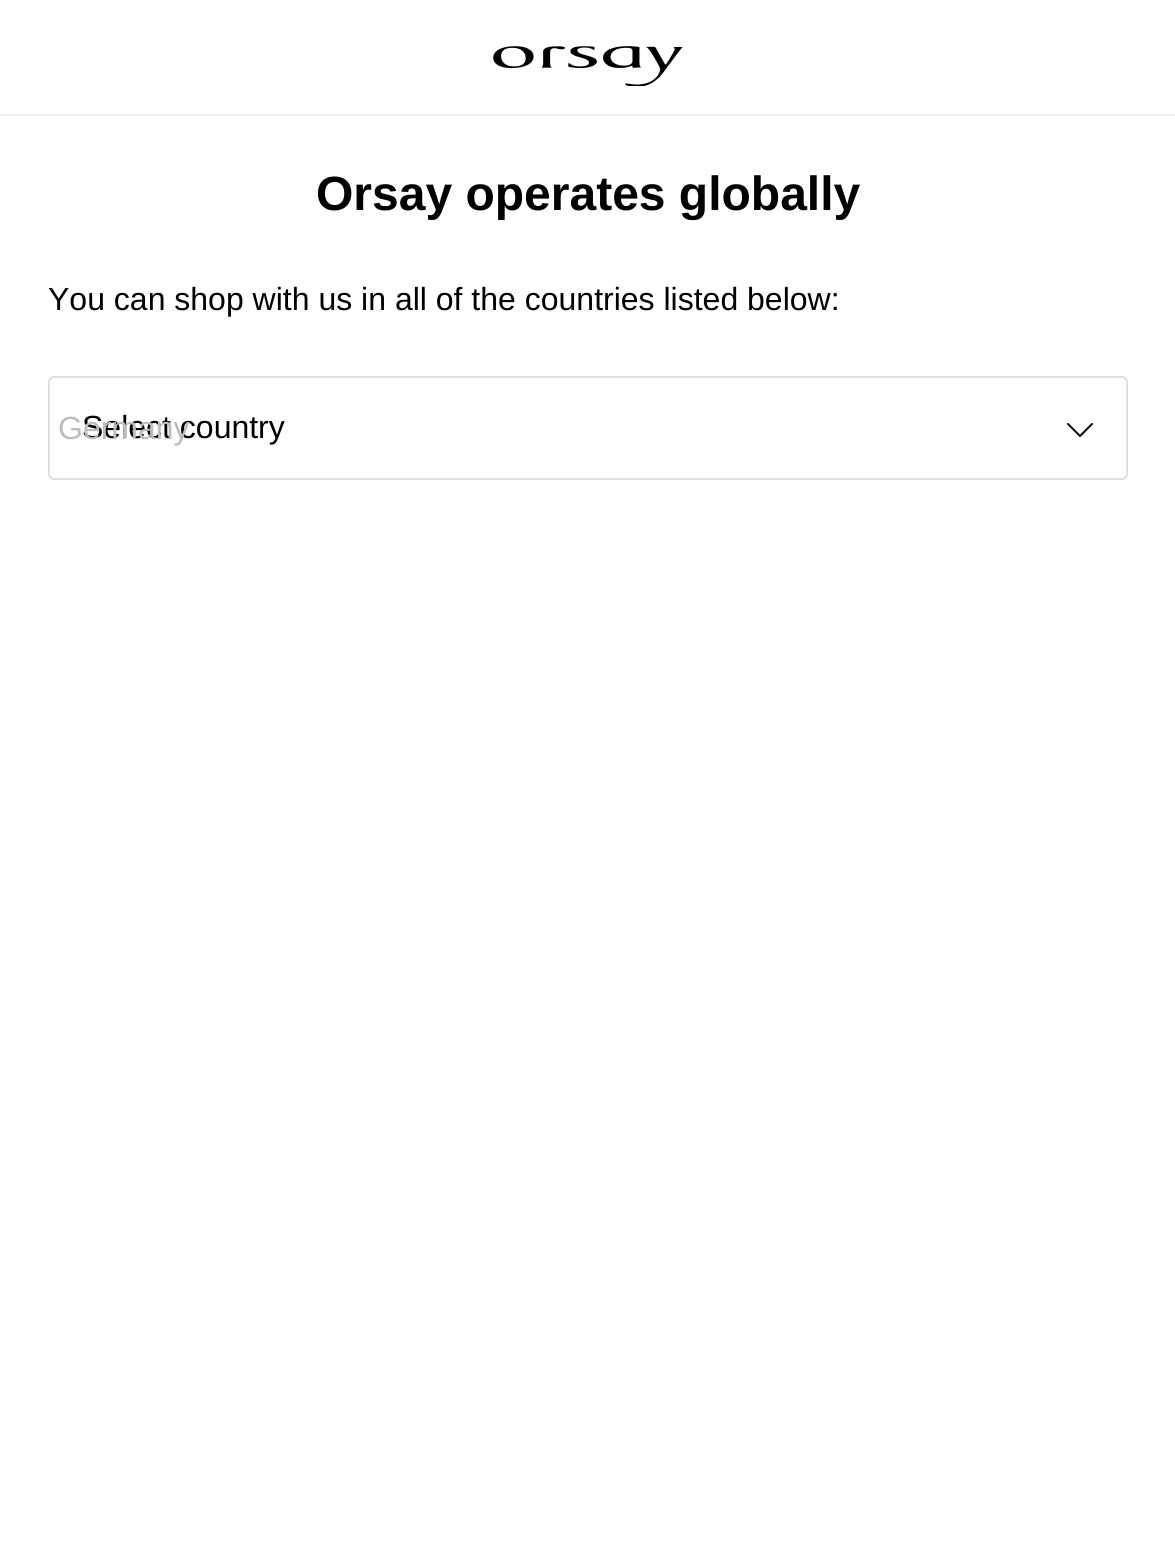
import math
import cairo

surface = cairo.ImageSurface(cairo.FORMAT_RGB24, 1175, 1541)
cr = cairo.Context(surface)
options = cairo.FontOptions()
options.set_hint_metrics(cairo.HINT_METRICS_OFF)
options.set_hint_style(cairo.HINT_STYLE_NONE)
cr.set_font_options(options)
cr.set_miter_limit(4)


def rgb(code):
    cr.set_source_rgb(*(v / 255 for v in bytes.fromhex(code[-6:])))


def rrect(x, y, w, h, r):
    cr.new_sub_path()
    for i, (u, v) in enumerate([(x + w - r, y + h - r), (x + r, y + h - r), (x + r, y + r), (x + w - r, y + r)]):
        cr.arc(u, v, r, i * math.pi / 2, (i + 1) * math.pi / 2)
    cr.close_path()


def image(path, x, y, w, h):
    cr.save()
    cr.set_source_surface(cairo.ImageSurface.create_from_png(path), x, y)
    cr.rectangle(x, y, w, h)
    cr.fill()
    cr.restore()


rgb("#ffffff")
cr.paint()
rgb("#f2f2f2")
cr.rectangle(0, 114, 1175, 2)
cr.fill()
image("img/1.png", 493, 46, 190, 40)
rrect(49, 377, 1078, 102, 5)
rgb("#e0e0e0")
cr.stroke()
cr.new_path()
cr.move_to(1092, 424)
cr.line_to(1080, 436)
cr.line_to(1068, 424)
rgb("#000000")
cr.set_line_cap(cairo.LINE_CAP_ROUND)
cr.set_line_join(cairo.LINE_JOIN_ROUND)
cr.stroke()
cr.select_font_face("Liberation Sans", cairo.FONT_SLANT_NORMAL, cairo.FONT_WEIGHT_BOLD)
cr.set_font_size(48)
cr.move_to(316, 210)
cr.show_text("Orsay operates globally")
cr.select_font_face("Liberation Sans")
cr.set_font_size(32)
cr.move_to(48, 310)
cr.show_text("You can shop with us in all of the countries listed below:")
cr.move_to(82, 438)
cr.show_text("Select country")
rgb("#bdbdbd")
cr.move_to(58, 439)
cr.show_text("Germany")
surface.write_to_png("page.png")
